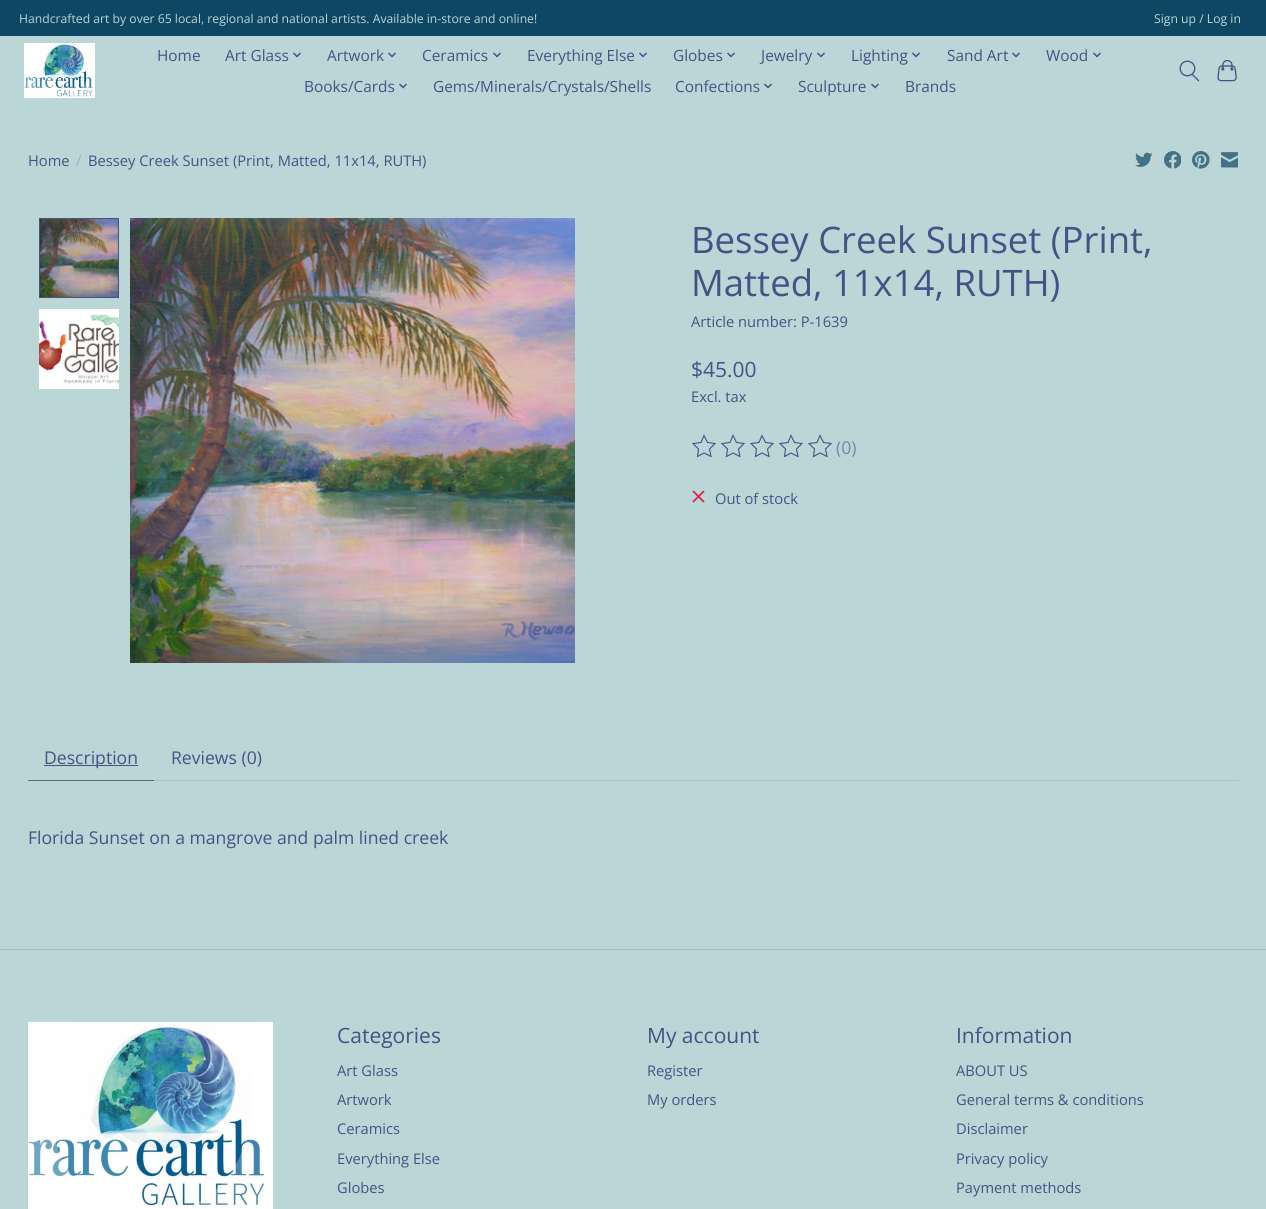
import math
import cairo

surface = cairo.ImageSurface(cairo.FORMAT_RGB24, 1266, 1209)
cr = cairo.Context(surface)
options = cairo.FontOptions()
options.set_hint_metrics(cairo.HINT_METRICS_OFF)
options.set_hint_style(cairo.HINT_STYLE_NONE)
cr.set_font_options(options)
cr.set_miter_limit(4)


def rgb(code):
    cr.set_source_rgb(*(v / 255 for v in bytes.fromhex(code[-6:])))


def image(path, x, y, w, h):
    cr.save()
    cr.set_source_surface(cairo.ImageSurface.create_from_png(path), x, y)
    cr.rectangle(x, y, w, h)
    cr.fill()
    cr.restore()


rgb("#bbd6d6")
cr.paint()
rgb("#0d4764")
cr.rectangle(0, 0, 1266, 36)
cr.fill()
image("img/1.png", 24, 43, 71, 55)
image("img/2.png", 293, 52, 8, 6)
image("img/2.png", 388, 52, 8, 6)
image("img/2.png", 493, 52, 8, 6)
image("img/2.png", 639, 52, 8, 6)
image("img/2.png", 727, 52, 8, 6)
image("img/2.png", 817, 52, 8, 6)
image("img/2.png", 912, 52, 8, 6)
image("img/2.png", 1012, 52, 8, 6)
image("img/2.png", 1093, 52, 8, 6)
image("img/2.png", 399, 83, 8, 6)
image("img/2.png", 764, 83, 8, 6)
image("img/2.png", 871, 83, 8, 6)
image("img/3.png", 1179, 60, 21, 22)
image("img/4.png", 1217, 60, 20, 22)
image("img/5.png", 1135, 152, 18, 15)
image("img/6.png", 1164, 151, 17, 18)
image("img/7.png", 1192, 151, 18, 18)
image("img/8.png", 1221, 152, 17, 16)
image("img/9.png", 40, 219, 78, 78)
cr.rectangle(39.5, 218.5, 79, 79)
rgb("#455284")
cr.set_line_width(1)
cr.stroke()
image("img/10.png", 39, 309, 80, 80)
image("img/11.png", 130, 218, 445, 445)
cr.new_path()
cr.move_to(704, 435.5)
cr.line_to(707.5, 442.5)
cr.line_to(715, 443.5)
cr.line_to(709.5, 449)
cr.line_to(711, 456.5)
cr.line_to(704, 453)
cr.line_to(697.5, 456.5)
cr.line_to(698.5, 449)
cr.line_to(693, 443.5)
cr.line_to(701, 442.5)
cr.close_path()
cr.move_to(733, 435.5)
cr.line_to(736.5, 442.5)
cr.line_to(744, 443.5)
cr.line_to(738.5, 449)
cr.line_to(740, 456.5)
cr.line_to(733, 453)
cr.line_to(726.5, 456.5)
cr.line_to(727.5, 449)
cr.line_to(722, 443.5)
cr.line_to(730, 442.5)
cr.close_path()
cr.set_line_width(1.1)
cr.stroke()
cr.new_path()
cr.move_to(762, 435.5)
cr.line_to(765.5, 442.5)
cr.line_to(773, 443.5)
cr.line_to(767.5, 449)
cr.line_to(769, 456.5)
cr.line_to(762, 453)
cr.line_to(755.5, 456.5)
cr.line_to(756.5, 449)
cr.line_to(751, 443.5)
cr.line_to(759, 442.5)
cr.close_path()
cr.move_to(791, 435.5)
cr.line_to(794.5, 442.5)
cr.line_to(802, 443.5)
cr.line_to(796.5, 449)
cr.line_to(798, 456.5)
cr.line_to(791, 453)
cr.line_to(784.5, 456.5)
cr.line_to(785.5, 449)
cr.line_to(780, 443.5)
cr.line_to(788, 442.5)
cr.close_path()
cr.stroke()
cr.new_path()
cr.move_to(820, 435.5)
cr.line_to(823.5, 442.5)
cr.line_to(831, 443.5)
cr.line_to(825.5, 449)
cr.line_to(827, 456.5)
cr.line_to(820, 453)
cr.line_to(813.5, 456.5)
cr.line_to(814.5, 449)
cr.line_to(809, 443.5)
cr.line_to(817, 442.5)
cr.close_path()
cr.stroke()
cr.new_path()
cr.move_to(703.5, 491.5)
cr.line_to(693.5, 501.5)
cr.move_to(693.5, 491.5)
cr.line_to(703.5, 501.5)
rgb("#e02447")
cr.set_line_width(1.8)
cr.set_line_cap(cairo.LINE_CAP_ROUND)
cr.set_line_join(cairo.LINE_JOIN_ROUND)
cr.stroke()
for x, y, w, h, color in [
    (28, 780, 126, 1, "#457184"),
    (44, 765, 94, 1, "#455284"),
    (154, 780, 1085, 1, "#a9c2ca"),
    (0, 949, 1266, 1, "#a3bcc6"),
]:
    rgb(color)
    cr.rectangle(x, y, w, h)
    cr.fill()
image("img/12.png", 28, 1022, 245, 187)
cr.select_font_face("Open Sans")
cr.set_font_size(12.2)
rgb("#bbd6d6")
cr.move_to(19, 23)
cr.show_text("Handcrafted art by over 65 local, regional and national artists. Available in-store and online!")
cr.move_to(1154, 23)
cr.show_text("Sign up / Log in")
cr.set_font_size(15.4)
rgb("#455284")
for x, y, s in [
    (157, 61, "Home"),
    (225, 61, "Art Glass"),
    (327, 61, "Artwork"),
    (422, 61, "Ceramics"),
    (527, 61, "Everything Else"),
    (673, 61, "Globes"),
    (761, 61, "Jewelry"),
    (851, 61, "Lighting"),
    (947, 61, "Sand Art"),
    (1046, 61, "Wood"),
    (304, 92, "Books/Cards"),
    (433, 92, "Gems/Minerals/Crystals/Shells"),
    (675, 92, "Confections"),
    (798, 92, "Sculpture"),
    (905, 92, "Brands"),
]:
    cr.move_to(x, y)
    cr.show_text(s)
cr.set_font_size(14.7)
cr.move_to(28, 166)
cr.show_text("Home")
rgb("#98aebd")
cr.move_to(76, 166)
cr.show_text("/")
rgb("#455284")
cr.move_to(88, 166)
cr.show_text("Bessey Creek Sunset (Print, Matted, 11x14, RUTH)")
cr.set_font_size(36.5)
cr.move_to(691, 253)
cr.show_text("Bessey Creek Sunset (Print,")
cr.move_to(691, 296)
cr.show_text("Matted, 11x14, RUTH)")
cr.set_font_size(14.7)
cr.move_to(691, 327)
cr.show_text("Article number: P-1639")
cr.set_font_size(21)
cr.move_to(691, 377)
cr.show_text("$45.00")
cr.set_font_size(14.7)
cr.move_to(691, 402)
cr.show_text("Excl. tax")
cr.set_font_size(17.6)
rgb("#7487a5")
cr.move_to(836, 454)
cr.show_text("(0)")
cr.set_font_size(14.7)
rgb("#455284")
cr.move_to(715, 504)
cr.show_text("Out of stock")
cr.set_font_size(17.6)
for x, y, s in [
    (44, 764, "Description"),
    (171, 764, "Reviews (0)"),
    (28, 844, "Florida Sunset on a mangrove and palm lined creek"),
]:
    cr.move_to(x, y)
    cr.show_text(s)
cr.set_font_size(21)
cr.move_to(337, 1043)
cr.show_text("Categories")
cr.set_font_size(14.7)
for x, y, s in [
    (337, 1076, "Art Glass"),
    (337, 1105, "Artwork"),
    (337, 1134, "Ceramics"),
    (337, 1164, "Everything Else"),
    (337, 1193, "Globes"),
]:
    cr.move_to(x, y)
    cr.show_text(s)
cr.set_font_size(21)
cr.move_to(647, 1043)
cr.show_text("My account")
cr.set_font_size(14.7)
cr.move_to(647, 1076)
cr.show_text("Register")
cr.move_to(647, 1105)
cr.show_text("My orders")
cr.set_font_size(21)
cr.move_to(956, 1043)
cr.show_text("Information")
cr.set_font_size(14.7)
for x, y, s in [
    (956, 1076, "ABOUT US"),
    (956, 1105, "General terms & conditions"),
    (956, 1134, "Disclaimer"),
    (956, 1164, "Privacy policy"),
    (956, 1193, "Payment methods"),
]:
    cr.move_to(x, y)
    cr.show_text(s)
surface.write_to_png("page.png")
